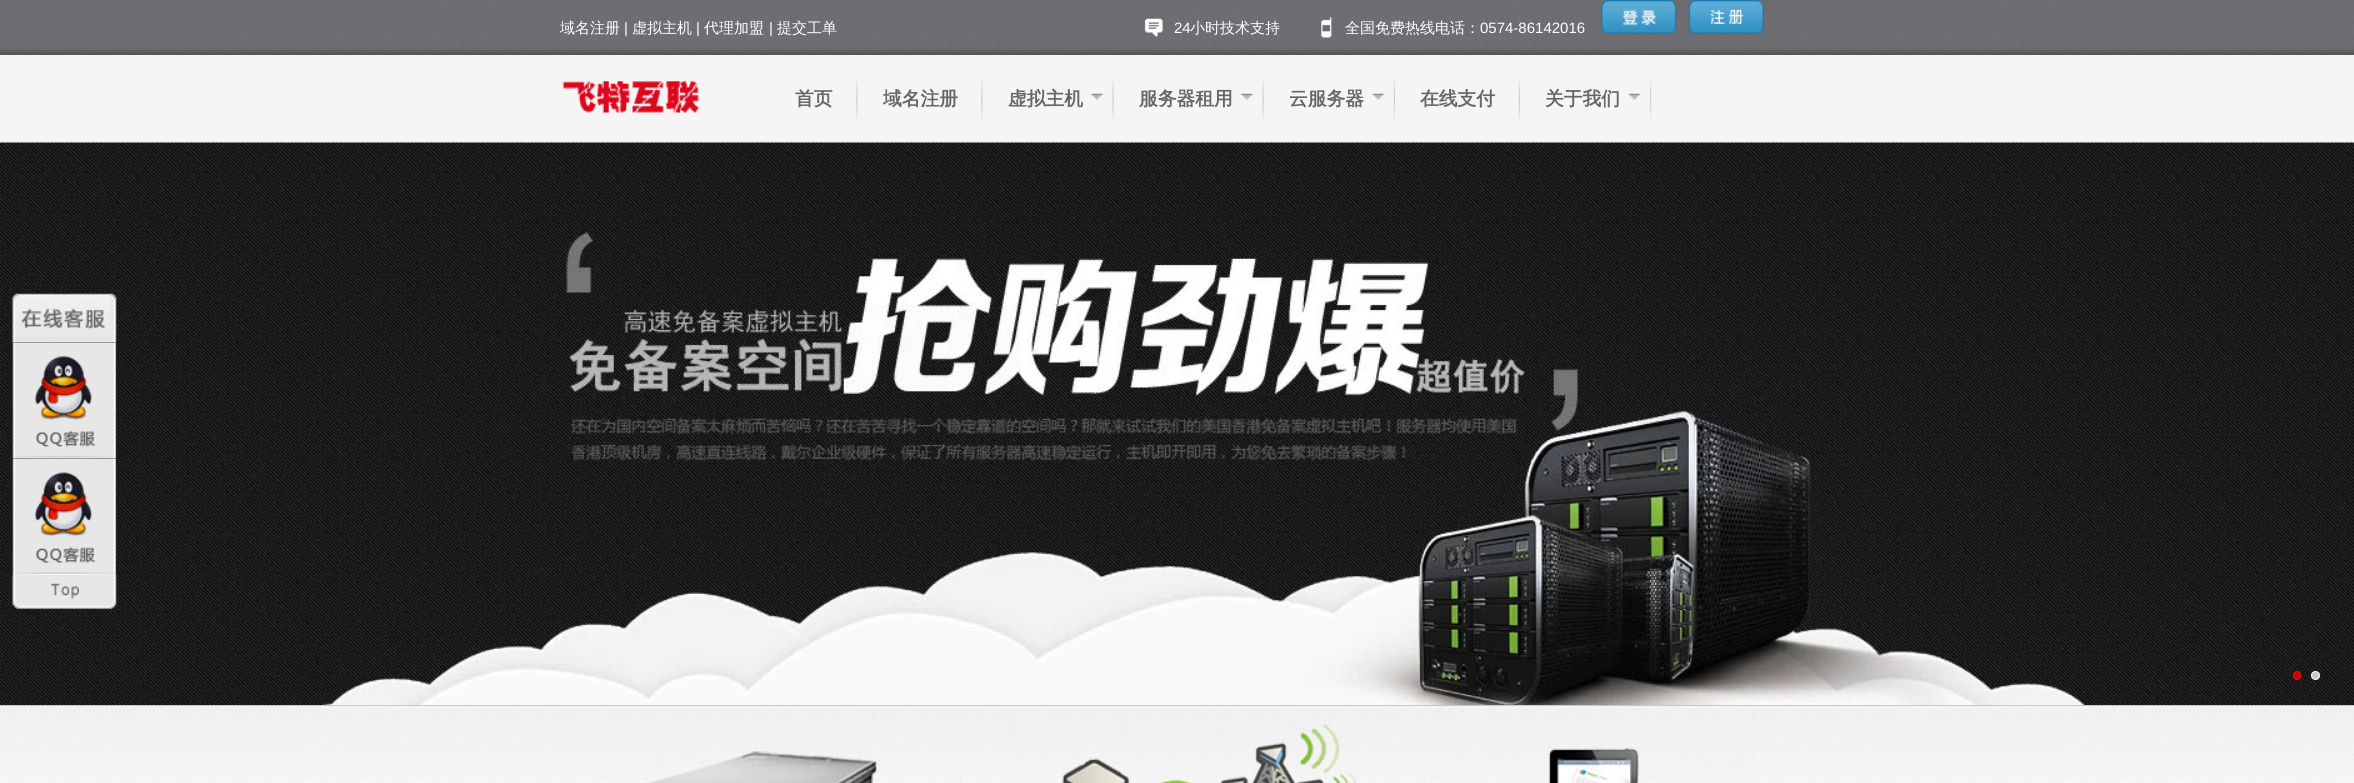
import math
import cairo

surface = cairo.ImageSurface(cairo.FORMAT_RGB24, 2354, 783)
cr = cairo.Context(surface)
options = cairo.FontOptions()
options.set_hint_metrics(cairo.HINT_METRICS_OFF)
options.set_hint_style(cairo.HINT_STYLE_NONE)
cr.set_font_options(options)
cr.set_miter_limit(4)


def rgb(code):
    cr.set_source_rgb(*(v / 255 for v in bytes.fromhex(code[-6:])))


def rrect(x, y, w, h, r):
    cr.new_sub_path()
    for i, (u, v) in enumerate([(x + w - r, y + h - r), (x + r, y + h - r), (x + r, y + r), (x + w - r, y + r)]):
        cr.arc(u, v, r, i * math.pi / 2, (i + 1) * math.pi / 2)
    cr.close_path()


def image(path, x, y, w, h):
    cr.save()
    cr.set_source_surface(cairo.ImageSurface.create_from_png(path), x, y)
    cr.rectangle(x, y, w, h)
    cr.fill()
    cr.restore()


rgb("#f5f5f5")
cr.paint()
image("img/1.png", 0, 0, 2354, 55)
image("img/2.png", 1144, 18, 19, 19)
image("img/3.png", 1321, 17, 11, 21)
image("img/4.png", 1601, 0, 76, 34)
image("img/5.png", 1688, 0, 76, 34)
image("img/6.png", 562, 80, 137, 34)
image("img/7.png", 856, 78, 2, 42)
image("img/7.png", 981, 78, 2, 42)
image("img/8.png", 1091, 78, 23, 42)
image("img/8.png", 1241, 78, 23, 42)
image("img/9.png", 1372, 78, 23, 42)
image("img/10.png", 1518, 78, 2, 42)
image("img/11.png", 1628, 78, 24, 42)
image("img/12.png", 0, 142, 2354, 563)
rgb("#cc0000")
rrect(2293.5, 671.5, 7, 8, 3.5)
cr.fill_preserve()
rgb("#ff0000")
cr.set_line_width(1)
cr.stroke()
rgb("#cccaca")
cr.arc(2315.5, 675.5, 4, 0, 2 * math.pi)
cr.fill_preserve()
rgb("#ffffff")
cr.stroke()
image("img/13.png", 12, 293, 105, 50)
image("img/14.png", 12, 342, 105, 117)
image("img/15.png", 12, 458, 105, 117)
image("img/16.png", 12, 575, 105, 34)
image("img/17.png", 0, 705, 2354, 78)
image("img/18.png", 599, 735, 283, 48)
image("img/19.png", 959, 705, 5, 78)
image("img/20.png", 1000, 724, 360, 59)
image("img/21.png", 1394, 705, 1, 78)
image("img/22.png", 1429, 735, 326, 48)
cr.select_font_face("WenQuanYi Zen Hei Medium")
cr.set_font_size(15)
cr.move_to(560, 33)
cr.show_text("域名注册")
cr.select_font_face("Liberation Sans")
cr.move_to(624, 33)
cr.show_text("|")
cr.select_font_face("WenQuanYi Zen Hei Medium")
cr.move_to(632, 33)
cr.show_text("虚拟主机")
cr.select_font_face("Liberation Sans")
cr.move_to(696, 33)
cr.show_text("|")
cr.select_font_face("WenQuanYi Zen Hei Medium")
cr.move_to(704, 33)
cr.show_text("代理加盟")
cr.select_font_face("Liberation Sans")
cr.move_to(769, 33)
cr.show_text("|")
cr.select_font_face("WenQuanYi Zen Hei Medium")
cr.move_to(777, 33)
cr.show_text("提交工单")
cr.select_font_face("Liberation Sans")
cr.move_to(1174, 33)
cr.show_text("24")
cr.select_font_face("WenQuanYi Zen Hei Medium")
cr.move_to(1190, 33)
cr.show_text("小时技术支持")
cr.move_to(1345, 33)
cr.show_text("全国免费热线电话：")
cr.select_font_face("Liberation Sans")
cr.move_to(1480, 33)
cr.show_text("0574-86142016")
cr.select_font_face("WenQuanYi Zen Hei", cairo.FONT_SLANT_NORMAL, cairo.FONT_WEIGHT_BOLD)
cr.set_font_size(18.75)
rgb("#666666")
for x, y, s in [
    (795, 105, "首页"),
    (883, 105, "域名注册"),
    (1008, 105, "虚拟主机"),
    (1139, 105, "服务器租用"),
    (1289, 105, "云服务器"),
    (1420, 105, "在线支付"),
    (1545, 105, "关于我们"),
]:
    cr.move_to(x, y)
    cr.show_text(s)
surface.write_to_png("page.png")
